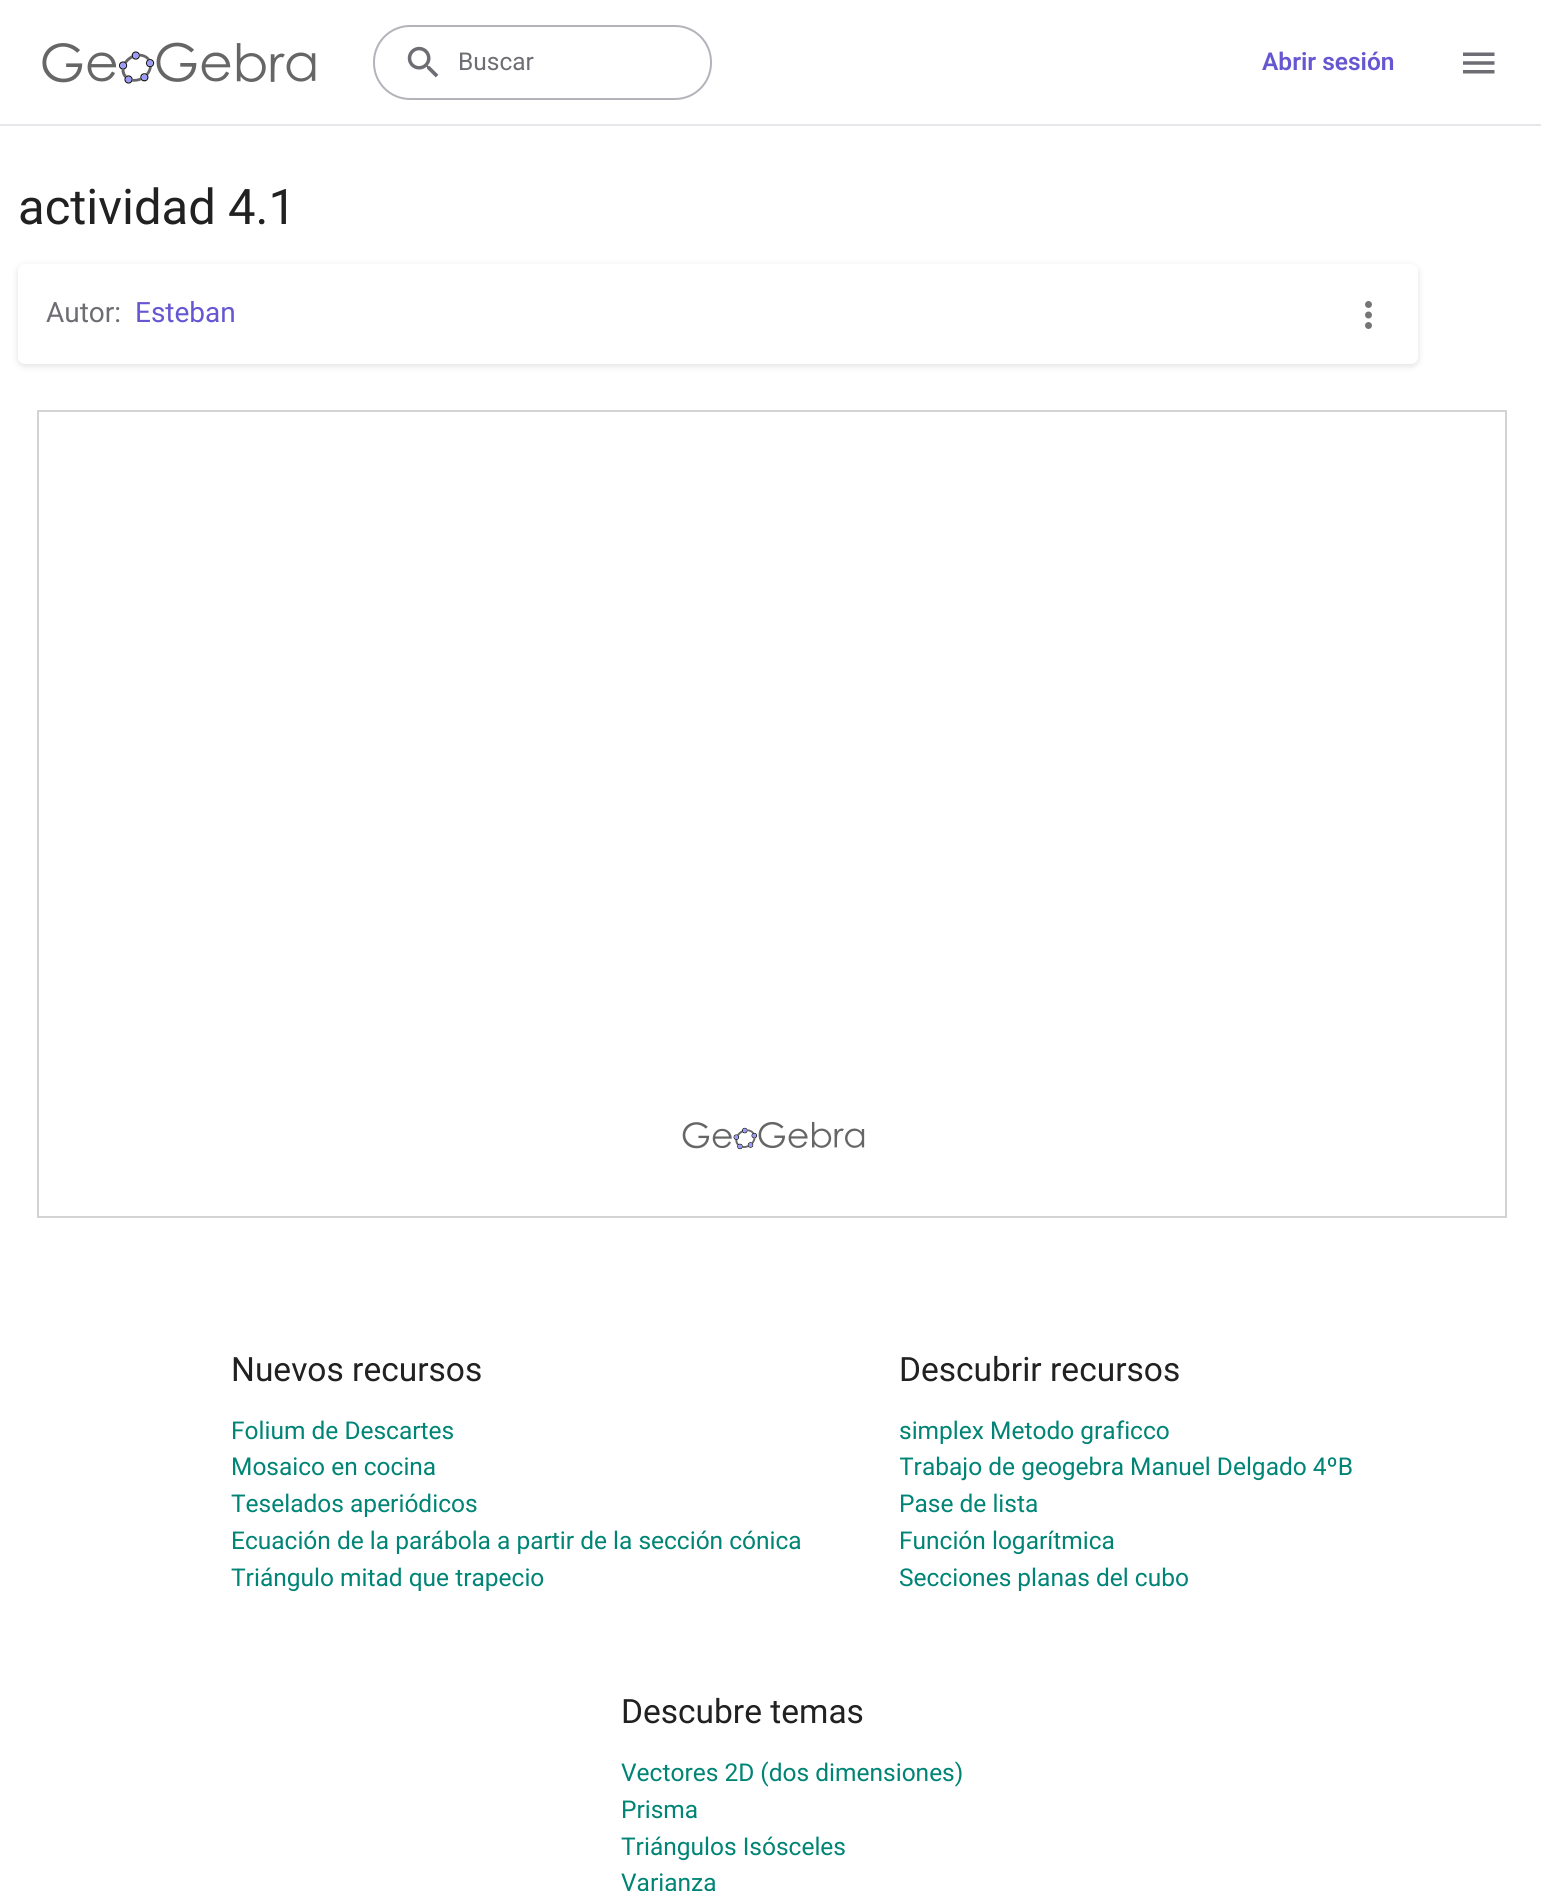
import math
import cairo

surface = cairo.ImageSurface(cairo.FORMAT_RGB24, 1541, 1891)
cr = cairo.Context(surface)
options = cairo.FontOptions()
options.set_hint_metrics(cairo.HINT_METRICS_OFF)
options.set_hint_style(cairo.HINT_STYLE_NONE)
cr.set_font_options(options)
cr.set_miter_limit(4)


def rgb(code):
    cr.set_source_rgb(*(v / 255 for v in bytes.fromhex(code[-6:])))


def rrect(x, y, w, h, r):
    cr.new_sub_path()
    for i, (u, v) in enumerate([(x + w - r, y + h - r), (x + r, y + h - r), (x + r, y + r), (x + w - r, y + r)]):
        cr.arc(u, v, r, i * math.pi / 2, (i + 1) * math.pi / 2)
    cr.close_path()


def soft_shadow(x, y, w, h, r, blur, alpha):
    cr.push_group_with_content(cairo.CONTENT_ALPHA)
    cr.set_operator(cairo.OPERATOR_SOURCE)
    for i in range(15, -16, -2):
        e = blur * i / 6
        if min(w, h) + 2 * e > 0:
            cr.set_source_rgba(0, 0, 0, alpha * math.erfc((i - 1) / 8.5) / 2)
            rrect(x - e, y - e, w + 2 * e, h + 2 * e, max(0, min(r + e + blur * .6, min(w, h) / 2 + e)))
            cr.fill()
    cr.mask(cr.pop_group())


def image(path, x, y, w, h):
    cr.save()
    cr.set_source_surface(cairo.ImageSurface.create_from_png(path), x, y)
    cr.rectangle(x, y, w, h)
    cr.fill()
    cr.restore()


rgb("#ffffff")
cr.paint()
rgb("#e6e6eb")
cr.rectangle(0, 124, 1541, 2)
cr.fill()
image("img/1.png", 42, 42, 274, 42)
rrect(374, 26, 337, 73, 36)
rgb("#b4b3ba")
cr.stroke()
image("img/2.png", 407, 46, 32, 32)
image("img/3.png", 1463, 52, 32, 22)
rgb("#1c1c1f")
soft_shadow(18, 266, 1400, 100, 7, 3.5, 0.14)
rgb("#ffffff")
rrect(18, 264, 1400, 100, 7)
cr.fill()
image("img/4.png", 1365, 301, 7, 28)
image("img/5.png", 682, 1121, 183, 29)
cr.rectangle(38, 411, 1468, 806)
rgb("#d3d3d3")
cr.stroke()
cr.select_font_face("Roboto")
cr.set_font_size(24.5)
rgb("#6e6d73")
cr.move_to(458, 70)
cr.show_text("Buscar")
cr.select_font_face("Roboto SemiBold")
rgb("#6557d2")
cr.move_to(1262, 70)
cr.show_text("Abrir sesión")
cr.select_font_face("Roboto")
cr.set_font_size(49)
rgb("#212121")
cr.move_to(18, 224)
cr.show_text("actividad 4.1")
cr.set_font_size(28)
rgb("#6e6d73")
cr.move_to(46, 322)
cr.show_text("Autor:")
rgb("#6557d2")
cr.move_to(135, 322)
cr.show_text("Esteban")
cr.set_font_size(33.5)
rgb("#212121")
cr.move_to(231, 1381)
cr.show_text("Nuevos recursos")
cr.set_font_size(24.5)
rgb("#008475")
for x, y, s in [
    (231, 1439, "Folium de Descartes"),
    (231, 1475, "Mosaico en cocina"),
    (231, 1512, "Teselados aperiódicos"),
    (231, 1549, "Ecuación de la parábola a partir de la sección cónica"),
    (231, 1586, "Triángulo mitad que trapecio"),
]:
    cr.move_to(x, y)
    cr.show_text(s)
cr.set_font_size(33.5)
rgb("#212121")
cr.move_to(899, 1381)
cr.show_text("Descubrir recursos")
cr.set_font_size(24.5)
rgb("#008475")
cr.move_to(899, 1439)
cr.show_text("simplex Metodo graficco")
cr.save()
cr.rectangle(900, 1449, 453, 37)
cr.clip()
cr.move_to(899, 1475)
cr.show_text("Trabajo de geogebra Manuel Delgado 4ºB")
cr.restore()
for x, y, s in [
    (899, 1512, "Pase de lista"),
    (899, 1549, "Función logarítmica"),
    (899, 1586, "Secciones planas del cubo"),
]:
    cr.move_to(x, y)
    cr.show_text(s)
cr.set_font_size(33.5)
rgb("#212121")
cr.move_to(621, 1723)
cr.show_text("Descubre temas")
cr.set_font_size(24.5)
rgb("#008475")
for x, y, s in [
    (621, 1781, "Vectores 2D (dos dimensiones)"),
    (621, 1818, "Prisma"),
    (621, 1855, "Triángulos Isósceles"),
    (621, 1891, "Varianza"),
]:
    cr.move_to(x, y)
    cr.show_text(s)
surface.write_to_png("page.png")
